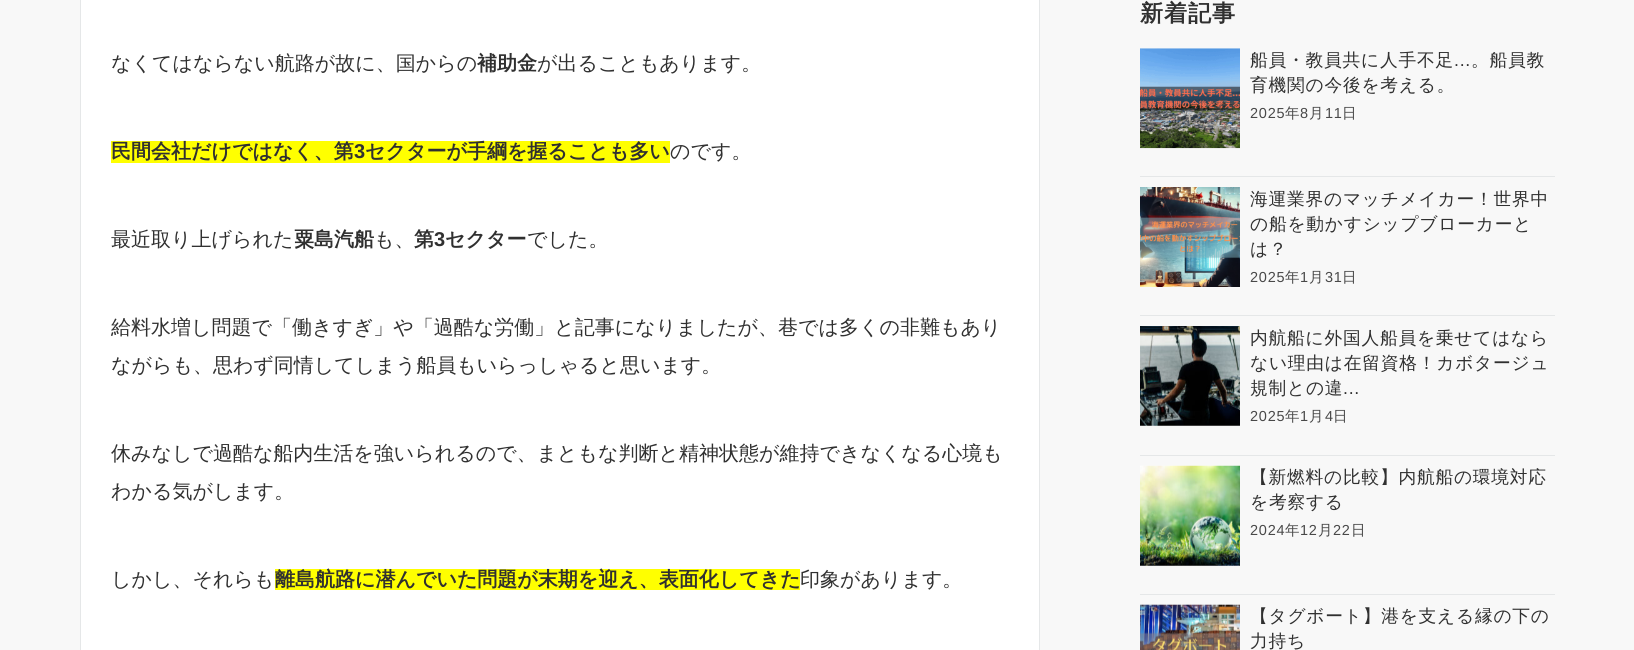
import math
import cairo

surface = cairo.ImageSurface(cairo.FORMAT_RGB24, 1634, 650)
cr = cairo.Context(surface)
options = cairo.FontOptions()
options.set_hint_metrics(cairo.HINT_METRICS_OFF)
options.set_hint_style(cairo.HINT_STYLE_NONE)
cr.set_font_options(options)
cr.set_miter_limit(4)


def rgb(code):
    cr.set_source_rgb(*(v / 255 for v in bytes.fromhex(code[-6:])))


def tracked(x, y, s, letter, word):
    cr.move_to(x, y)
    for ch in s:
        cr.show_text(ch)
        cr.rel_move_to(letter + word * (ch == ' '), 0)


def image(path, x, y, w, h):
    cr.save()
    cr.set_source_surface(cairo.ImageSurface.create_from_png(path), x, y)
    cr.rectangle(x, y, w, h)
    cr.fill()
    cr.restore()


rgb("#f8f8f8")
cr.paint()
rgb("#ffffff")
cr.rectangle(80.5, -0.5, 959, 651)
cr.fill_preserve()
rgb("#e5e7e8")
cr.set_line_width(1)
cr.stroke()
for x, y, w, h, color in [
    (111, 141, 559, 22, "#ffff00"),
    (275, 569, 525, 21, "#ffff00"),
    (1140, 176, 415, 1, "#e5e7e8"),
]:
    rgb(color)
    cr.rectangle(x, y, w, h)
    cr.fill()
image("img/1.png", 1140, 48, 100, 101)
cr.rectangle(1140, 315, 415, 1)
cr.fill()
image("img/2.png", 1140, 187, 100, 100)
cr.rectangle(1140, 455, 415, 1)
cr.fill()
image("img/3.png", 1140, 326, 100, 100)
cr.rectangle(1140, 594, 415, 1)
cr.fill()
image("img/4.png", 1140, 465, 100, 101)
image("img/5.png", 1140, 604, 100, 46)
cr.select_font_face("WenQuanYi Zen Hei Medium")
cr.set_font_size(20)
rgb("#303030")
cr.move_to(111, 70)
cr.show_text("なくてはならない航路が故に、国からの")
cr.select_font_face("WenQuanYi Zen Hei", cairo.FONT_SLANT_NORMAL, cairo.FONT_WEIGHT_BOLD)
cr.move_to(477, 70)
cr.show_text("補助金")
cr.select_font_face("WenQuanYi Zen Hei Medium")
cr.move_to(537, 70)
cr.show_text("が出ることもあります。")
cr.select_font_face("WenQuanYi Zen Hei", cairo.FONT_SLANT_NORMAL, cairo.FONT_WEIGHT_BOLD)
cr.move_to(111, 158)
cr.show_text("民間会社だけではなく、第")
cr.select_font_face("Liberation Sans", cairo.FONT_SLANT_NORMAL, cairo.FONT_WEIGHT_BOLD)
cr.move_to(354, 158)
cr.show_text("3")
cr.select_font_face("WenQuanYi Zen Hei", cairo.FONT_SLANT_NORMAL, cairo.FONT_WEIGHT_BOLD)
cr.move_to(365, 158)
cr.show_text("セクターが手綱を握ることも多い")
cr.select_font_face("WenQuanYi Zen Hei Medium")
cr.move_to(670, 158)
cr.show_text("のです。")
cr.move_to(111, 246)
cr.show_text("最近取り上げられた")
cr.select_font_face("WenQuanYi Zen Hei", cairo.FONT_SLANT_NORMAL, cairo.FONT_WEIGHT_BOLD)
cr.move_to(294, 246)
cr.show_text("粟島汽船")
cr.select_font_face("WenQuanYi Zen Hei Medium")
cr.move_to(374, 246)
cr.show_text("も、")
cr.select_font_face("WenQuanYi Zen Hei", cairo.FONT_SLANT_NORMAL, cairo.FONT_WEIGHT_BOLD)
cr.move_to(414, 246)
cr.show_text("第")
cr.select_font_face("Liberation Sans", cairo.FONT_SLANT_NORMAL, cairo.FONT_WEIGHT_BOLD)
cr.move_to(434, 246)
cr.show_text("3")
cr.select_font_face("WenQuanYi Zen Hei", cairo.FONT_SLANT_NORMAL, cairo.FONT_WEIGHT_BOLD)
cr.move_to(445, 246)
cr.show_text("セクター")
cr.select_font_face("WenQuanYi Zen Hei Medium")
for x, y, s in [
    (527, 246, "でした。"),
    (111, 334, "給料水増し問題で「働きすぎ」や「過酷な労働」と記事になりましたが、巷では多くの非難もあり"),
    (111, 372, "ながらも、思わず同情してしまう船員もいらっしゃると思います。"),
    (111, 460, "休みなしで過酷な船内生活を強いられるので、まともな判断と精神状態が維持できなくなる心境も"),
    (111, 498, "わかる気がします。"),
    (111, 586, "しかし、それらも"),
]:
    cr.move_to(x, y)
    cr.show_text(s)
cr.select_font_face("WenQuanYi Zen Hei", cairo.FONT_SLANT_NORMAL, cairo.FONT_WEIGHT_BOLD)
cr.move_to(275, 586)
cr.show_text("離島航路に潜んでいた問題が末期を迎え、表面化してきた")
cr.select_font_face("WenQuanYi Zen Hei Medium")
cr.move_to(800, 586)
cr.show_text("印象があります。")
cr.select_font_face("WenQuanYi Zen Hei", cairo.FONT_SLANT_NORMAL, cairo.FONT_WEIGHT_BOLD)
cr.set_font_size(23)
tracked(1140, 21, "新着記事", 1, 0)
cr.select_font_face("WenQuanYi Zen Hei Medium")
cr.set_font_size(17.75)
tracked(1250, 66, "船員・教員共に人手不足", 0.75, 0)
cr.select_font_face("Liberation Sans")
tracked(1454, 66, "...", 0.75, 0)
cr.select_font_face("WenQuanYi Zen Hei Medium")
tracked(1471, 66, "。船員教", 0.75, 0)
tracked(1250, 91, "育機関の今後を考える。", 0.75, 0)
cr.select_font_face("Liberation Sans")
cr.set_font_size(14.5)
rgb("#484848")
tracked(1250, 118, "2025", 0.75, 0)
cr.select_font_face("WenQuanYi Zen Hei Medium")
tracked(1285, 118, "年", 0.75, 0)
cr.select_font_face("Liberation Sans")
tracked(1300, 118, "8", 0.75, 0)
cr.select_font_face("WenQuanYi Zen Hei Medium")
tracked(1309, 118, "月", 0.75, 0)
cr.select_font_face("Liberation Sans")
tracked(1325, 118, "11", 0.75, 0)
cr.select_font_face("WenQuanYi Zen Hei Medium")
tracked(1342, 118, "日", 0.75, 0)
cr.set_font_size(17.75)
rgb("#303030")
for x, y, s in [
    (1250, 205, "海運業界のマッチメイカー！世界中"),
    (1250, 230, "の船を動かすシップブローカーと"),
    (1250, 255, "は？"),
]:
    tracked(x, y, s, 0.75, 0)
cr.select_font_face("Liberation Sans")
cr.set_font_size(14.5)
rgb("#484848")
tracked(1250, 282, "2025", 0.75, 0)
cr.select_font_face("WenQuanYi Zen Hei Medium")
tracked(1285, 282, "年", 0.75, 0)
cr.select_font_face("Liberation Sans")
tracked(1300, 282, "1", 0.75, 0)
cr.select_font_face("WenQuanYi Zen Hei Medium")
tracked(1309, 282, "月", 0.75, 0)
cr.select_font_face("Liberation Sans")
tracked(1325, 282, "31", 0.75, 0)
cr.select_font_face("WenQuanYi Zen Hei Medium")
tracked(1342, 282, "日", 0.75, 0)
cr.set_font_size(17.75)
rgb("#303030")
for x, y, s in [
    (1250, 344, "内航船に外国人船員を乗せてはなら"),
    (1250, 369, "ない理由は在留資格！カボタージュ"),
    (1250, 394, "規制との違"),
]:
    tracked(x, y, s, 0.75, 0)
cr.select_font_face("Liberation Sans")
tracked(1343, 394, "...", 0.75, 0)
cr.set_font_size(14.5)
rgb("#484848")
tracked(1250, 421, "2025", 0.75, 0)
cr.select_font_face("WenQuanYi Zen Hei Medium")
tracked(1285, 421, "年", 0.75, 0)
cr.select_font_face("Liberation Sans")
tracked(1300, 421, "1", 0.75, 0)
cr.select_font_face("WenQuanYi Zen Hei Medium")
tracked(1309, 421, "月", 0.75, 0)
cr.select_font_face("Liberation Sans")
tracked(1325, 421, "4", 0.75, 0)
cr.select_font_face("WenQuanYi Zen Hei Medium")
tracked(1333, 421, "日", 0.75, 0)
cr.set_font_size(17.75)
rgb("#303030")
tracked(1250, 483, "【新燃料の比較】内航船の環境対応", 0.75, 0)
tracked(1250, 508, "を考察する", 0.75, 0)
cr.select_font_face("Liberation Sans")
cr.set_font_size(14.5)
rgb("#484848")
tracked(1250, 535, "2024", 0.75, 0)
cr.select_font_face("WenQuanYi Zen Hei Medium")
tracked(1285, 535, "年", 0.75, 0)
cr.select_font_face("Liberation Sans")
tracked(1300, 535, "12", 0.75, 0)
cr.select_font_face("WenQuanYi Zen Hei Medium")
tracked(1318, 535, "月", 0.75, 0)
cr.select_font_face("Liberation Sans")
tracked(1333, 535, "22", 0.75, 0)
cr.select_font_face("WenQuanYi Zen Hei Medium")
tracked(1351, 535, "日", 0.75, 0)
cr.set_font_size(17.75)
rgb("#303030")
tracked(1250, 622, "【タグボート】港を支える縁の下の", 0.75, 0)
tracked(1250, 647, "力持ち", 0.75, 0)
surface.write_to_png("page.png")
